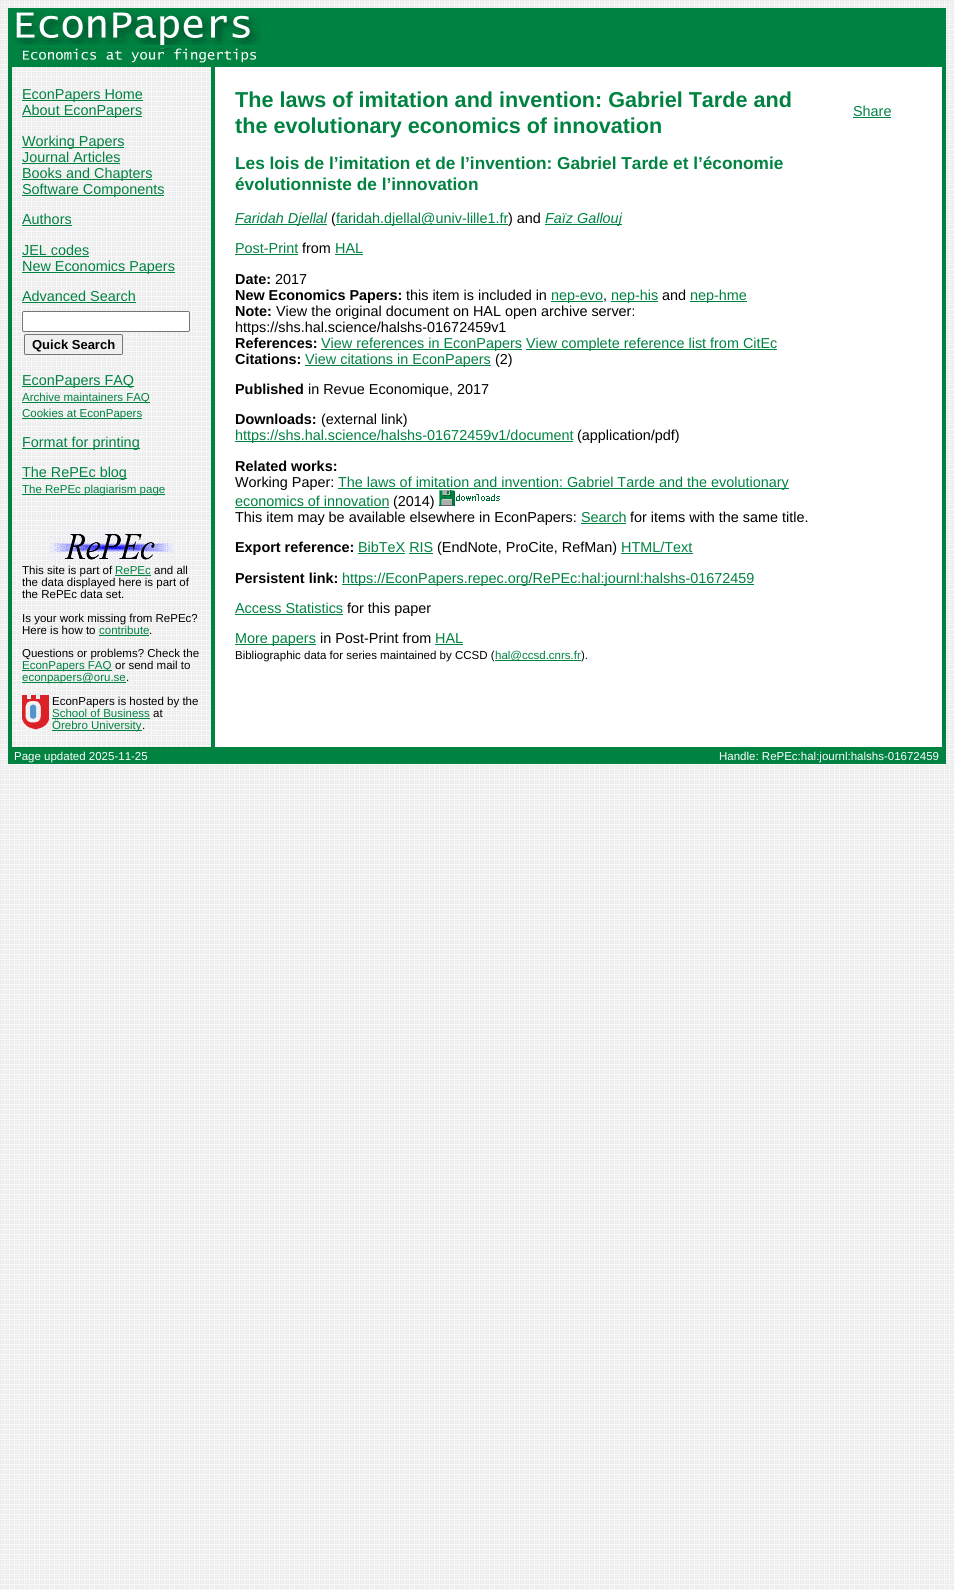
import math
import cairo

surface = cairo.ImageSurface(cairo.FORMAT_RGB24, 954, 1590)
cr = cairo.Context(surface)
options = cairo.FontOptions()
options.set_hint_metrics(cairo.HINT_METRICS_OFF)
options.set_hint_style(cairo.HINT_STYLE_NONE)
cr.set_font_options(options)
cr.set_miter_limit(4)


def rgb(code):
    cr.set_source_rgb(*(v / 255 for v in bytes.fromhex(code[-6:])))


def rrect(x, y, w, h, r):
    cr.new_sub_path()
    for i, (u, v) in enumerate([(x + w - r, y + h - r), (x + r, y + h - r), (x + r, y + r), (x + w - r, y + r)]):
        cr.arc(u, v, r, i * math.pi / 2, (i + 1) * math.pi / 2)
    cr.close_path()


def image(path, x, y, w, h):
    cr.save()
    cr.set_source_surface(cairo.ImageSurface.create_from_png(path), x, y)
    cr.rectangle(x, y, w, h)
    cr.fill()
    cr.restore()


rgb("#ffffff")
cr.paint()
image("img/1.png", 0, 0, 954, 1590)
rgb("#008241")
cr.rectangle(8, 8, 4, 756)
cr.fill()
cr.rectangle(12, 8, 930, 40)
cr.fill()
image("img/2.png", 13, 10, 249, 35)
cr.rectangle(942, 8, 4, 756)
cr.fill()
cr.rectangle(12, 48, 930, 19)
cr.fill()
image("img/3.png", 18, 48, 239, 15)
image("img/4.png", 12, 67, 199, 449)
for x, y, w, h, color in [
    (22, 100, 121, 1, "#008241"),
    (22, 116, 120, 1, "#008241"),
    (22, 147, 102, 1, "#008241"),
    (22, 163, 98, 1, "#008241"),
    (22, 179, 130, 1, "#008241"),
    (22, 195, 142, 1, "#008241"),
    (22, 225, 50, 1, "#008241"),
    (22, 256, 67, 1, "#008241"),
    (22, 272, 153, 1, "#008241"),
    (22, 302, 114, 1, "#008241"),
]:
    rgb(color)
    cr.rectangle(x, y, w, h)
    cr.fill()
rgb("#ffffff")
rrect(22.5, 311.5, 167, 20, 1.5)
cr.fill_preserve()
rgb("#767676")
cr.set_line_width(1)
cr.stroke()
rgb("#efefef")
rrect(24.5, 334.5, 98, 20, 1.5)
cr.fill_preserve()
rgb("#767676")
cr.stroke()
for x, y, w, h, color in [
    (22, 386, 112, 1, "#008241"),
    (22, 402, 128, 1, "#008241"),
    (22, 418, 120, 1, "#008241"),
    (22, 448, 118, 1, "#008241"),
    (22, 478, 105, 1, "#008241"),
    (22, 494, 143, 1, "#008241"),
    (211, 67, 4, 680, "#008241"),
    (215, 67, 727, 680, "#ffffff"),
    (235, 224, 92, 1, "#008241"),
    (336, 224, 172, 1, "#008241"),
    (545, 224, 77, 1, "#008241"),
    (235, 254, 63, 1, "#008241"),
    (335, 254, 28, 1, "#008241"),
    (551, 301, 52, 1, "#008241"),
    (611, 301, 47, 1, "#008241"),
    (690, 301, 57, 1, "#008241"),
    (321, 349, 201, 1, "#008241"),
    (526, 349, 251, 1, "#008241"),
    (305, 365, 186, 1, "#008241"),
    (235, 441, 338, 1, "#008241"),
    (338, 488, 451, 1, "#008241"),
    (235, 507, 154, 1, "#008241"),
]:
    rgb(color)
    cr.rectangle(x, y, w, h)
    cr.fill()
image("img/5.png", 439, 490, 61, 16)
for x, y, w, h, color in [
    (581, 523, 45, 1, "#008241"),
    (358, 553, 47, 1, "#008241"),
    (621, 553, 72, 1, "#008241"),
    (409, 553, 24, 1, "#008241"),
    (342, 584, 412, 1, "#008241"),
    (235, 614, 108, 1, "#008241"),
    (235, 644, 81, 1, "#008241"),
    (435, 644, 28, 1, "#008241"),
    (495, 660, 86, 1, "#008241"),
    (853, 117, 38, 1, "#008241"),
]:
    rgb(color)
    cr.rectangle(x, y, w, h)
    cr.fill()
image("img/6.png", 12, 516, 199, 231)
image("img/7.png", 48, 532, 127, 29)
for x, y, w, h, color in [
    (115, 575, 36, 1, "#008241"),
    (99, 635, 50, 1, "#008241"),
    (22, 670, 90, 1, "#008241"),
    (22, 682, 104, 1, "#008241"),
]:
    rgb(color)
    cr.rectangle(x, y, w, h)
    cr.fill()
image("img/8.png", 22, 695, 27, 35)
for x, y, w, h, color in [
    (52, 718, 98, 1, "#008241"),
    (52, 730, 90, 1, "#008241"),
    (12, 747, 930, 17, "#008241"),
]:
    rgb(color)
    cr.rectangle(x, y, w, h)
    cr.fill()
cr.select_font_face("Liberation Sans")
cr.set_font_size(14.4)
for x, y, s in [
    (22, 99, "EconPapers Home"),
    (22, 115, "About EconPapers"),
    (22, 146, "Working Papers"),
    (22, 162, "Journal Articles"),
    (22, 178, "Books and Chapters"),
    (22, 194, "Software Components"),
    (22, 224, "Authors"),
    (22, 255, "JEL codes"),
    (22, 271, "New Economics Papers"),
    (22, 301, "Advanced Search"),
]:
    cr.move_to(x, y)
    cr.show_text(s)
cr.select_font_face("Liberation Sans", cairo.FONT_SLANT_NORMAL, cairo.FONT_WEIGHT_BOLD)
cr.set_font_size(13)
rgb("#000000")
cr.move_to(32, 349)
cr.show_text("Quick Search")
cr.select_font_face("Liberation Sans")
cr.set_font_size(14.4)
rgb("#008241")
cr.move_to(22, 385)
cr.show_text("EconPapers FAQ")
cr.set_font_size(11.5)
cr.move_to(22, 401)
cr.show_text("Archive maintainers FAQ")
cr.move_to(22, 417)
cr.show_text("Cookies at EconPapers")
cr.set_font_size(14.4)
cr.move_to(22, 447)
cr.show_text("Format for printing")
cr.move_to(22, 477)
cr.show_text("The RePEc blog")
cr.set_font_size(11.5)
cr.move_to(22, 493)
cr.show_text("The RePEc plagiarism page")
cr.select_font_face("Liberation Sans", cairo.FONT_SLANT_NORMAL, cairo.FONT_WEIGHT_BOLD)
cr.set_font_size(21.6)
cr.move_to(235, 107)
cr.show_text("The laws of imitation and invention: Gabriel Tarde and")
cr.move_to(235, 133)
cr.show_text("the evolutionary economics of innovation")
cr.set_font_size(17.25)
cr.move_to(235, 169)
cr.show_text("Les lois de l’imitation et de l’invention: Gabriel Tarde et l’économie")
cr.move_to(235, 190)
cr.show_text("évolutionniste de l’innovation")
cr.select_font_face("Liberation Sans", cairo.FONT_SLANT_ITALIC)
cr.set_font_size(14.4)
cr.move_to(235, 223)
cr.show_text("Faridah Djellal")
cr.select_font_face("Liberation Sans")
rgb("#000000")
cr.move_to(331, 223)
cr.show_text("(")
rgb("#008241")
cr.move_to(336, 223)
cr.show_text("faridah.djellal@univ-lille1.fr")
rgb("#000000")
cr.move_to(508, 223)
cr.show_text(") and")
cr.select_font_face("Liberation Sans", cairo.FONT_SLANT_ITALIC)
rgb("#008241")
cr.move_to(545, 223)
cr.show_text("Faïz Gallouj")
cr.select_font_face("Liberation Sans")
cr.move_to(235, 253)
cr.show_text("Post-Print")
rgb("#000000")
cr.move_to(302, 253)
cr.show_text("from")
rgb("#008241")
cr.move_to(335, 253)
cr.show_text("HAL")
cr.select_font_face("Liberation Sans", cairo.FONT_SLANT_NORMAL, cairo.FONT_WEIGHT_BOLD)
rgb("#000000")
cr.move_to(235, 284)
cr.show_text("Date:")
cr.select_font_face("Liberation Sans")
cr.move_to(275, 284)
cr.show_text("2017")
cr.select_font_face("Liberation Sans", cairo.FONT_SLANT_NORMAL, cairo.FONT_WEIGHT_BOLD)
cr.move_to(235, 300)
cr.show_text("New Economics Papers:")
cr.select_font_face("Liberation Sans")
cr.move_to(406, 300)
cr.show_text("this item is included in")
rgb("#008241")
cr.move_to(551, 300)
cr.show_text("nep-evo")
rgb("#000000")
cr.move_to(603, 300)
cr.show_text(",")
rgb("#008241")
cr.move_to(611, 300)
cr.show_text("nep-his")
rgb("#000000")
cr.move_to(662, 300)
cr.show_text("and")
rgb("#008241")
cr.move_to(690, 300)
cr.show_text("nep-hme")
cr.select_font_face("Liberation Sans", cairo.FONT_SLANT_NORMAL, cairo.FONT_WEIGHT_BOLD)
rgb("#000000")
cr.move_to(235, 316)
cr.show_text("Note:")
cr.select_font_face("Liberation Sans")
cr.move_to(276, 316)
cr.show_text("View the original document on HAL open archive server:")
cr.move_to(235, 332)
cr.show_text("https://shs.hal.science/halshs-01672459v1")
cr.select_font_face("Liberation Sans", cairo.FONT_SLANT_NORMAL, cairo.FONT_WEIGHT_BOLD)
cr.move_to(235, 348)
cr.show_text("References:")
cr.select_font_face("Liberation Sans")
rgb("#008241")
cr.move_to(321, 348)
cr.show_text("View references in EconPapers")
cr.move_to(526, 348)
cr.show_text("View complete reference list from CitEc")
cr.select_font_face("Liberation Sans", cairo.FONT_SLANT_NORMAL, cairo.FONT_WEIGHT_BOLD)
rgb("#000000")
cr.move_to(235, 364)
cr.show_text("Citations:")
cr.select_font_face("Liberation Sans")
rgb("#008241")
cr.move_to(305, 364)
cr.show_text("View citations in EconPapers")
rgb("#000000")
cr.move_to(495, 364)
cr.show_text("(2)")
cr.select_font_face("Liberation Sans", cairo.FONT_SLANT_NORMAL, cairo.FONT_WEIGHT_BOLD)
cr.move_to(235, 394)
cr.show_text("Published")
cr.select_font_face("Liberation Sans")
cr.move_to(308, 394)
cr.show_text("in Revue Economique, 2017")
cr.select_font_face("Liberation Sans", cairo.FONT_SLANT_NORMAL, cairo.FONT_WEIGHT_BOLD)
cr.move_to(235, 424)
cr.show_text("Downloads:")
cr.select_font_face("Liberation Sans")
cr.move_to(321, 424)
cr.show_text("(external link)")
rgb("#008241")
cr.move_to(235, 440)
cr.show_text("https://shs.hal.science/halshs-01672459v1/document")
rgb("#000000")
cr.move_to(577, 440)
cr.show_text("(application/pdf)")
cr.select_font_face("Liberation Sans", cairo.FONT_SLANT_NORMAL, cairo.FONT_WEIGHT_BOLD)
cr.move_to(235, 471)
cr.show_text("Related works:")
cr.select_font_face("Liberation Sans")
cr.move_to(235, 487)
cr.show_text("Working Paper:")
rgb("#008241")
cr.move_to(338, 487)
cr.show_text("The laws of imitation and invention: Gabriel Tarde and the evolutionary")
cr.move_to(235, 506)
cr.show_text("economics of innovation")
rgb("#000000")
cr.move_to(393, 506)
cr.show_text("(2014)")
cr.move_to(235, 522)
cr.show_text("This item may be available elsewhere in EconPapers:")
rgb("#008241")
cr.move_to(581, 522)
cr.show_text("Search")
rgb("#000000")
cr.move_to(630, 522)
cr.show_text("for items with the same title.")
cr.select_font_face("Liberation Sans", cairo.FONT_SLANT_NORMAL, cairo.FONT_WEIGHT_BOLD)
cr.move_to(235, 552)
cr.show_text("Export reference:")
cr.select_font_face("Liberation Sans")
rgb("#008241")
cr.move_to(358, 552)
cr.show_text("BibTeX RIS")
rgb("#000000")
cr.move_to(437, 552)
cr.show_text("(EndNote, ProCite, RefMan)")
rgb("#008241")
cr.move_to(621, 552)
cr.show_text("HTML/Text")
cr.select_font_face("Liberation Sans", cairo.FONT_SLANT_NORMAL, cairo.FONT_WEIGHT_BOLD)
rgb("#000000")
cr.move_to(235, 583)
cr.show_text("Persistent link:")
cr.select_font_face("Liberation Sans")
rgb("#008241")
cr.move_to(342, 583)
cr.show_text("https://EconPapers.repec.org/RePEc:hal:journl:halshs-01672459")
cr.move_to(235, 613)
cr.show_text("Access Statistics")
rgb("#000000")
cr.move_to(347, 613)
cr.show_text("for this paper")
rgb("#008241")
cr.move_to(235, 643)
cr.show_text("More papers")
rgb("#000000")
cr.move_to(320, 643)
cr.show_text("in Post-Print from")
rgb("#008241")
cr.move_to(435, 643)
cr.show_text("HAL")
cr.set_font_size(11.5)
rgb("#000000")
cr.move_to(235, 659)
cr.show_text("Bibliographic data for series maintained by CCSD (")
rgb("#008241")
cr.move_to(495, 659)
cr.show_text("hal@ccsd.cnrs.fr")
rgb("#000000")
cr.move_to(581, 659)
cr.show_text(").")
cr.set_font_size(14.4)
rgb("#008241")
cr.move_to(853, 116)
cr.show_text("Share")
cr.set_font_size(11.5)
rgb("#000000")
cr.move_to(22, 574)
cr.show_text("This site is part of")
rgb("#008241")
cr.move_to(115, 574)
cr.show_text("RePEc")
rgb("#000000")
for x, y, s in [
    (154, 574, "and all"),
    (22, 586, "the data displayed here is part of"),
    (22, 598, "the RePEc data set."),
    (22, 622, "Is your work missing from RePEc?"),
    (22, 634, "Here is how to"),
]:
    cr.move_to(x, y)
    cr.show_text(s)
rgb("#008241")
cr.move_to(99, 634)
cr.show_text("contribute")
rgb("#000000")
cr.move_to(149, 634)
cr.show_text(".")
cr.move_to(22, 657)
cr.show_text("Questions or problems? Check the")
rgb("#008241")
cr.move_to(22, 669)
cr.show_text("EconPapers FAQ")
rgb("#000000")
cr.move_to(115, 669)
cr.show_text("or send mail to")
rgb("#008241")
cr.move_to(22, 681)
cr.show_text("econpapers@oru.se")
rgb("#000000")
cr.move_to(126, 681)
cr.show_text(".")
cr.move_to(52, 705)
cr.show_text("EconPapers is hosted by the")
rgb("#008241")
cr.move_to(52, 717)
cr.show_text("School of Business")
rgb("#000000")
cr.move_to(153, 717)
cr.show_text("at")
rgb("#008241")
cr.move_to(52, 729)
cr.show_text("Örebro University")
rgb("#000000")
cr.move_to(142, 729)
cr.show_text(".")
rgb("#ffffff")
cr.move_to(14, 760)
cr.show_text("Page updated 2025-11-25")
cr.move_to(719, 760)
cr.show_text("Handle: RePEc:hal:journl:halshs-01672459")
surface.write_to_png("page.png")
